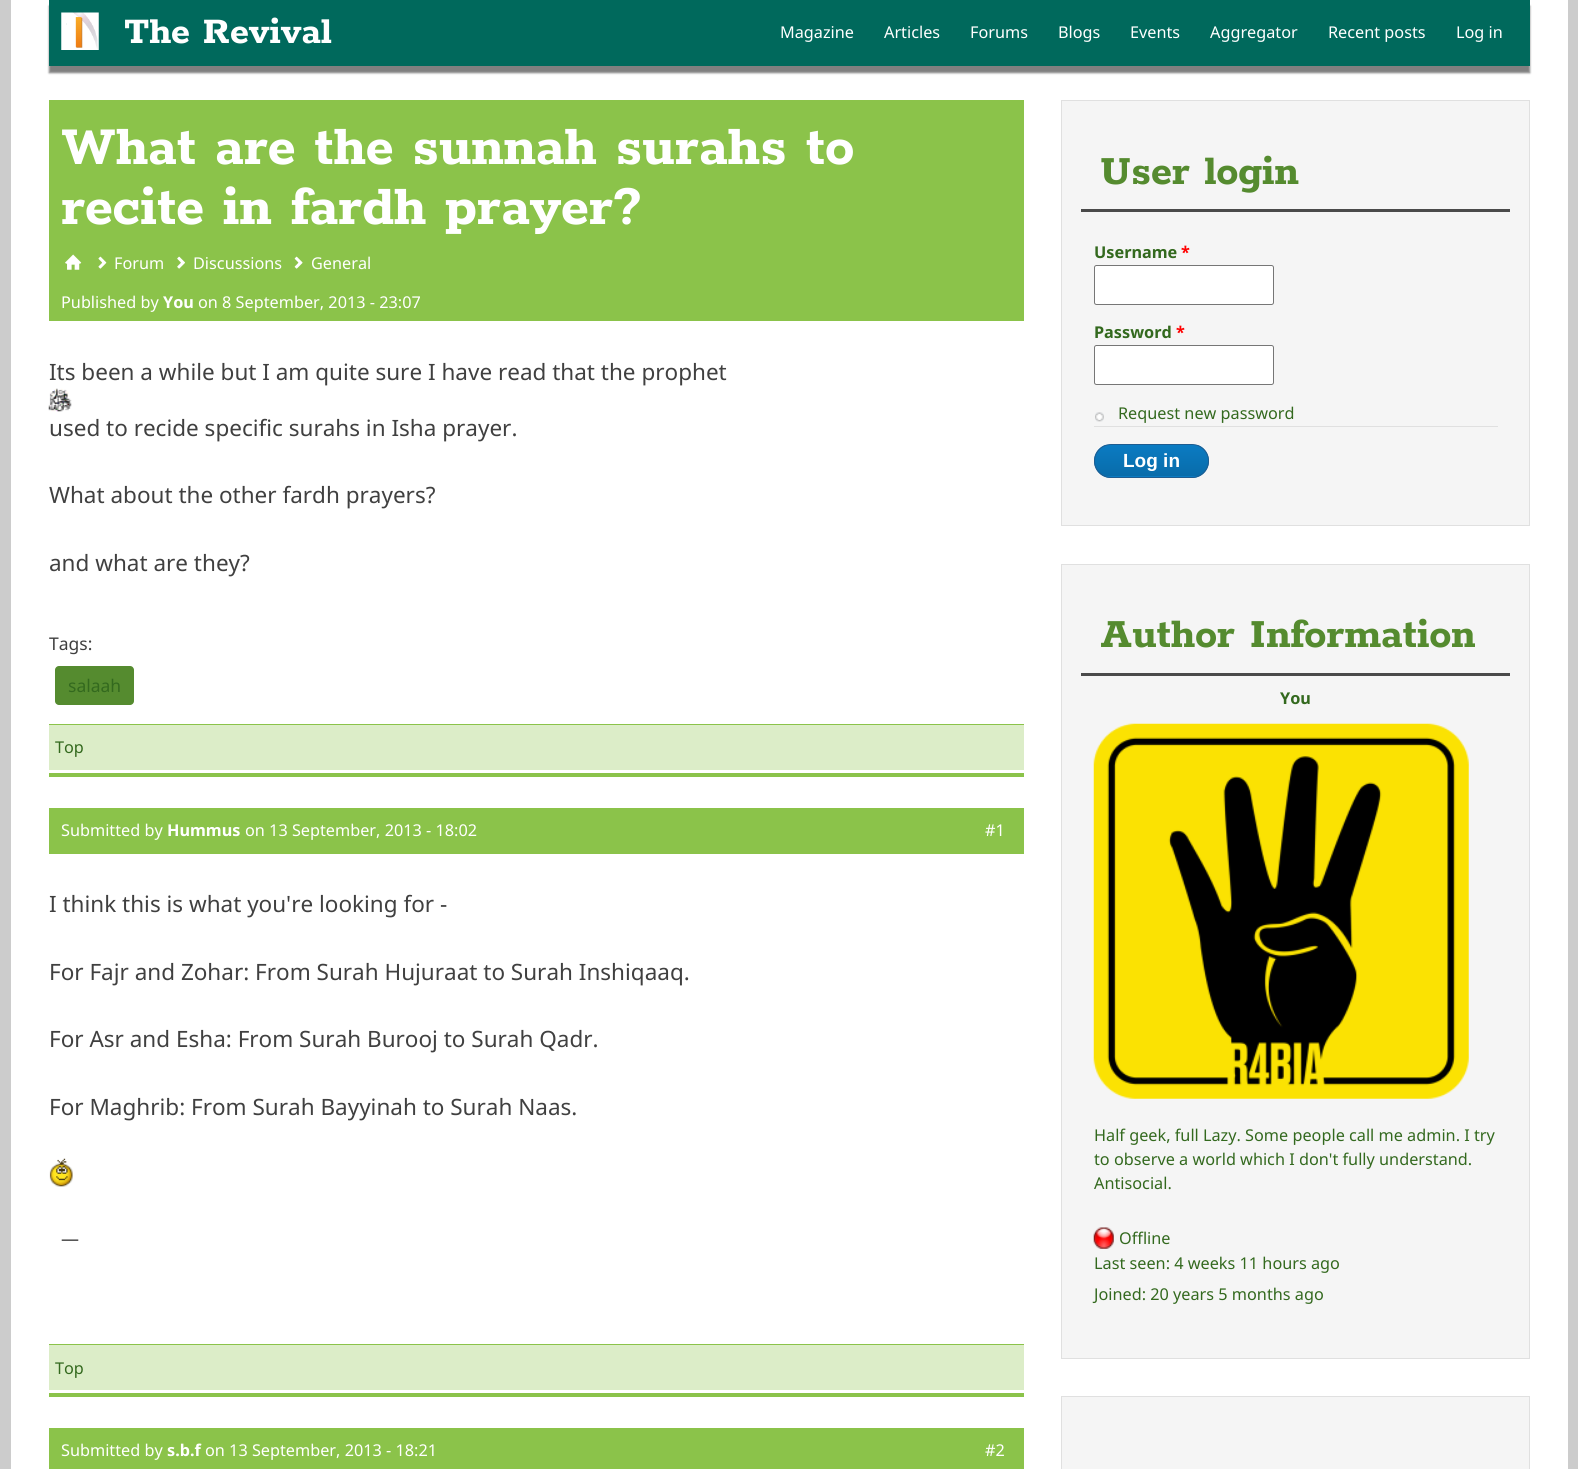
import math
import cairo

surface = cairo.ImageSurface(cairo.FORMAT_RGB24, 1578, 1469)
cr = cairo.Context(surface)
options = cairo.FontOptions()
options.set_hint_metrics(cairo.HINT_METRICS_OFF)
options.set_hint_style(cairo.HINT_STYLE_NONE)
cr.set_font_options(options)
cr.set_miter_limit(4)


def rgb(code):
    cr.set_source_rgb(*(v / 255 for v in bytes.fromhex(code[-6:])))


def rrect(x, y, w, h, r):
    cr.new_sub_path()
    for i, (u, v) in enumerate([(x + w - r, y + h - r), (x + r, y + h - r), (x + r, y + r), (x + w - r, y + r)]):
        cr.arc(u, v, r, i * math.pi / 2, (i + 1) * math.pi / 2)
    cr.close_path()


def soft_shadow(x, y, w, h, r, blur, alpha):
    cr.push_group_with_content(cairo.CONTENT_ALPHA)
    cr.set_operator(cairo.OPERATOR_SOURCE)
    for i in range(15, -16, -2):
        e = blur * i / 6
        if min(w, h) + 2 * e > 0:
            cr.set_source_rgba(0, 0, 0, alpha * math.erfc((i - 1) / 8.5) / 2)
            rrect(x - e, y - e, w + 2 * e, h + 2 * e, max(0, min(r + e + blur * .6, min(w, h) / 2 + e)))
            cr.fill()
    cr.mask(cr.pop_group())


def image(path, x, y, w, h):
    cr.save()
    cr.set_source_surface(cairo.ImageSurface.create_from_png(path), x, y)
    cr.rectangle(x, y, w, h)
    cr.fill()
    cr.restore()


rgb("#cccccc")
cr.paint()
rgb("#ffffff")
cr.rectangle(11, 0, 1557, 1469)
cr.fill()
rgb("#000000")
soft_shadow(49, 6, 1481, 67, 0, 1, 0.5)
rgb("#00695c")
cr.rectangle(49, 0, 1481, 66)
cr.fill()
image("img/1.png", 61, 12, 38, 38)
rgb("#8bc34a")
cr.rectangle(49, 100, 975, 221)
cr.fill()
image("img/2.png", 65, 254, 17, 16)
image("img/3.png", 98, 256, 9, 13)
image("img/4.png", 177, 256, 8, 13)
image("img/5.png", 294, 256, 9, 13)
cr.rectangle(49, 773, 975, 4)
cr.fill()
image("img/6.png", 48, 388, 24, 24)
rgb("#558b2f")
rrect(55, 666, 79, 39, 4)
cr.fill()
for x, y, w, h, color in [
    (49, 725, 975, 45, "#dcedc8"),
    (49, 724, 975, 1, "#8bc34a"),
    (49, 1393, 975, 4, "#8bc34a"),
    (49, 808, 975, 46, "#8bc34a"),
]:
    rgb(color)
    cr.rectangle(x, y, w, h)
    cr.fill()
image("img/7.png", 49, 1158, 24, 29)
for x, y, w, h, color in [
    (49, 1345, 975, 45, "#dcedc8"),
    (49, 1344, 975, 1, "#8bc34a"),
    (49, 1428, 975, 41, "#8bc34a"),
]:
    rgb(color)
    cr.rectangle(x, y, w, h)
    cr.fill()
rgb("#f5f5f5")
cr.rectangle(1061.5, 100.5, 468, 425)
cr.fill_preserve()
rgb("#e0e0e0")
cr.set_line_width(1)
cr.stroke()
rgb("#4a4a4a")
cr.rectangle(1081, 209, 429, 3)
cr.fill()
rgb("#ffffff")
rrect(1094.5, 265.5, 179, 39, 2)
cr.fill_preserve()
rgb("#767676")
cr.stroke()
rgb("#ffffff")
rrect(1094.5, 345.5, 179, 39, 2)
cr.fill_preserve()
rgb("#767676")
cr.stroke()
image("img/8.png", 1095, 412, 9, 10)
rgb("#e0e0e0")
cr.rectangle(1094, 426, 404, 1)
cr.fill()
cr.save()
rrect(1094, 444, 115, 34, 17)
cr.clip()
gradient = cairo.LinearGradient(1151, 445, 1151, 476)
gradient.add_color_stop_rgba(0, 0.039, 0.482, 0.761, 1)
gradient.add_color_stop_rgba(1, 0.035, 0.424, 0.667, 1)
cr.set_source(gradient)
cr.rectangle(1094, 445, 115, 31)
cr.fill()
gradient = cairo.LinearGradient(1151, 476, 1151, 508)
gradient.add_color_stop_rgba(0, 0.039, 0.482, 0.761, 1)
gradient.add_color_stop_rgba(1, 0.035, 0.424, 0.667, 1)
cr.set_source(gradient)
cr.rectangle(1103, 476, 97, 2)
cr.fill()
cr.restore()
rrect(1094.5, 444.5, 114, 33, 16.5)
rgb("#1e5c90")
cr.stroke()
rgb("#f5f5f5")
cr.rectangle(1061.5, 564.5, 468, 794)
cr.fill_preserve()
rgb("#e0e0e0")
cr.stroke()
rgb("#4a4a4a")
cr.rectangle(1081, 673, 429, 3)
cr.fill()
image("img/9.png", 1093, 723, 376, 376)
image("img/10.png", 1093, 1227, 21, 22)
rgb("#f5f5f5")
cr.rectangle(1061.5, 1396.5, 468, 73)
cr.fill_preserve()
rgb("#e0e0e0")
cr.stroke()
cr.select_font_face("Rokkitt", cairo.FONT_SLANT_NORMAL, cairo.FONT_WEIGHT_BOLD)
cr.set_font_size(40.5)
rgb("#ffffff")
cr.move_to(124, 43)
cr.show_text("The Revival")
cr.select_font_face("Noto Sans")
cr.set_font_size(16.25)
for x, y, s in [
    (780, 38, "Magazine"),
    (884, 38, "Articles"),
    (970, 38, "Forums"),
    (1058, 38, "Blogs"),
    (1130, 38, "Events"),
    (1210, 38, "Aggregator"),
    (1328, 38, "Recent posts"),
    (1456, 38, "Log in"),
]:
    cr.move_to(x, y)
    cr.show_text(s)
cr.select_font_face("Rokkitt", cairo.FONT_SLANT_NORMAL, cairo.FONT_WEIGHT_BOLD)
cr.set_font_size(60)
cr.move_to(61, 164)
cr.show_text("What are the sunnah surahs to")
cr.move_to(61, 224)
cr.show_text("recite in fardh prayer?")
cr.select_font_face("Noto Sans")
cr.set_font_size(16.25)
for x, y, s in [
    (114, 269, "Forum"),
    (193, 269, "Discussions"),
    (311, 269, "General"),
    (61, 308, "Published by"),
]:
    cr.move_to(x, y)
    cr.show_text(s)
cr.select_font_face("Noto Sans", cairo.FONT_SLANT_NORMAL, cairo.FONT_WEIGHT_BOLD)
cr.move_to(163, 308)
cr.show_text("You")
cr.select_font_face("Noto Sans")
cr.move_to(198, 308)
cr.show_text("on 8 September, 2013 - 23:07")
cr.set_font_size(22.5)
rgb("#404040")
for x, y, s in [
    (49, 380, "Its been a while but I am quite sure I have read that the prophet"),
    (49, 436, "used to recide specific surahs in Isha prayer."),
    (49, 503, "What about the other fardh prayers?"),
    (49, 571, "and what are they?"),
]:
    cr.move_to(x, y)
    cr.show_text(s)
cr.set_font_size(17.5)
cr.move_to(49, 650)
cr.show_text("Tags:")
rgb("#33691e")
cr.move_to(68, 692)
cr.show_text("salaah")
cr.set_font_size(16.25)
cr.move_to(55, 753)
cr.show_text("Top")
rgb("#ffffff")
cr.move_to(61, 836)
cr.show_text("Submitted by")
cr.select_font_face("Noto Sans", cairo.FONT_SLANT_NORMAL, cairo.FONT_WEIGHT_BOLD)
cr.move_to(167, 836)
cr.show_text("Hummus")
cr.select_font_face("Noto Sans")
cr.move_to(245, 836)
cr.show_text("on 13 September, 2013 - 18:02")
cr.move_to(985, 836)
cr.show_text("#1")
cr.set_font_size(22.5)
rgb("#404040")
for x, y, s in [
    (49, 912, "I think this is what you're looking for -"),
    (49, 980, "For Fajr and Zohar: From Surah Hujuraat to Surah Inshiqaaq."),
    (49, 1047, "For Asr and Esha: From Surah Burooj to Surah Qadr."),
    (49, 1115, "For Maghrib: From Surah Bayyinah to Surah Naas."),
]:
    cr.move_to(x, y)
    cr.show_text(s)
cr.set_font_size(18)
cr.move_to(61, 1245)
cr.show_text("—")
cr.set_font_size(16.25)
rgb("#33691e")
cr.move_to(55, 1374)
cr.show_text("Top")
rgb("#ffffff")
cr.move_to(61, 1456)
cr.show_text("Submitted by")
cr.select_font_face("Noto Sans", cairo.FONT_SLANT_NORMAL, cairo.FONT_WEIGHT_BOLD)
cr.move_to(167, 1456)
cr.show_text("s.b.f")
cr.select_font_face("Noto Sans")
cr.move_to(205, 1456)
cr.show_text("on 13 September, 2013 - 18:21")
cr.move_to(985, 1456)
cr.show_text("#2")
cr.select_font_face("Rokkitt", cairo.FONT_SLANT_NORMAL, cairo.FONT_WEIGHT_BOLD)
cr.set_font_size(45)
rgb("#558b2f")
cr.move_to(1100, 184)
cr.show_text("User login")
cr.select_font_face("Noto Sans", cairo.FONT_SLANT_NORMAL, cairo.FONT_WEIGHT_BOLD)
cr.set_font_size(16.25)
rgb("#33691e")
cr.move_to(1094, 258)
cr.show_text("Username")
rgb("#ff0000")
cr.move_to(1181, 258)
cr.show_text("*")
rgb("#33691e")
cr.move_to(1094, 338)
cr.show_text("Password")
rgb("#ff0000")
cr.move_to(1176, 338)
cr.show_text("*")
cr.select_font_face("Noto Sans")
rgb("#33691e")
cr.move_to(1118, 419)
cr.show_text("Request new password")
cr.select_font_face("Liberation Sans", cairo.FONT_SLANT_NORMAL, cairo.FONT_WEIGHT_BOLD)
cr.set_font_size(19)
rgb("#ffffff")
cr.move_to(1123, 467)
cr.show_text("Log in")
cr.select_font_face("Rokkitt", cairo.FONT_SLANT_NORMAL, cairo.FONT_WEIGHT_BOLD)
cr.set_font_size(45)
rgb("#558b2f")
cr.move_to(1100, 647)
cr.show_text("Author Information")
cr.select_font_face("Noto Sans", cairo.FONT_SLANT_NORMAL, cairo.FONT_WEIGHT_BOLD)
cr.set_font_size(16.25)
rgb("#33691e")
cr.move_to(1280, 704)
cr.show_text("You")
cr.select_font_face("Noto Sans")
for x, y, s in [
    (1094, 1141, "Half geek, full Lazy. Some people call me admin. I try"),
    (1094, 1165, "to observe a world which I don't fully understand."),
    (1094, 1189, "Antisocial."),
    (1119, 1244, "Offline"),
    (1094, 1269, "Last seen: 4 weeks 11 hours ago"),
    (1094, 1300, "Joined: 20 years 5 months ago"),
]:
    cr.move_to(x, y)
    cr.show_text(s)
surface.write_to_png("page.png")
